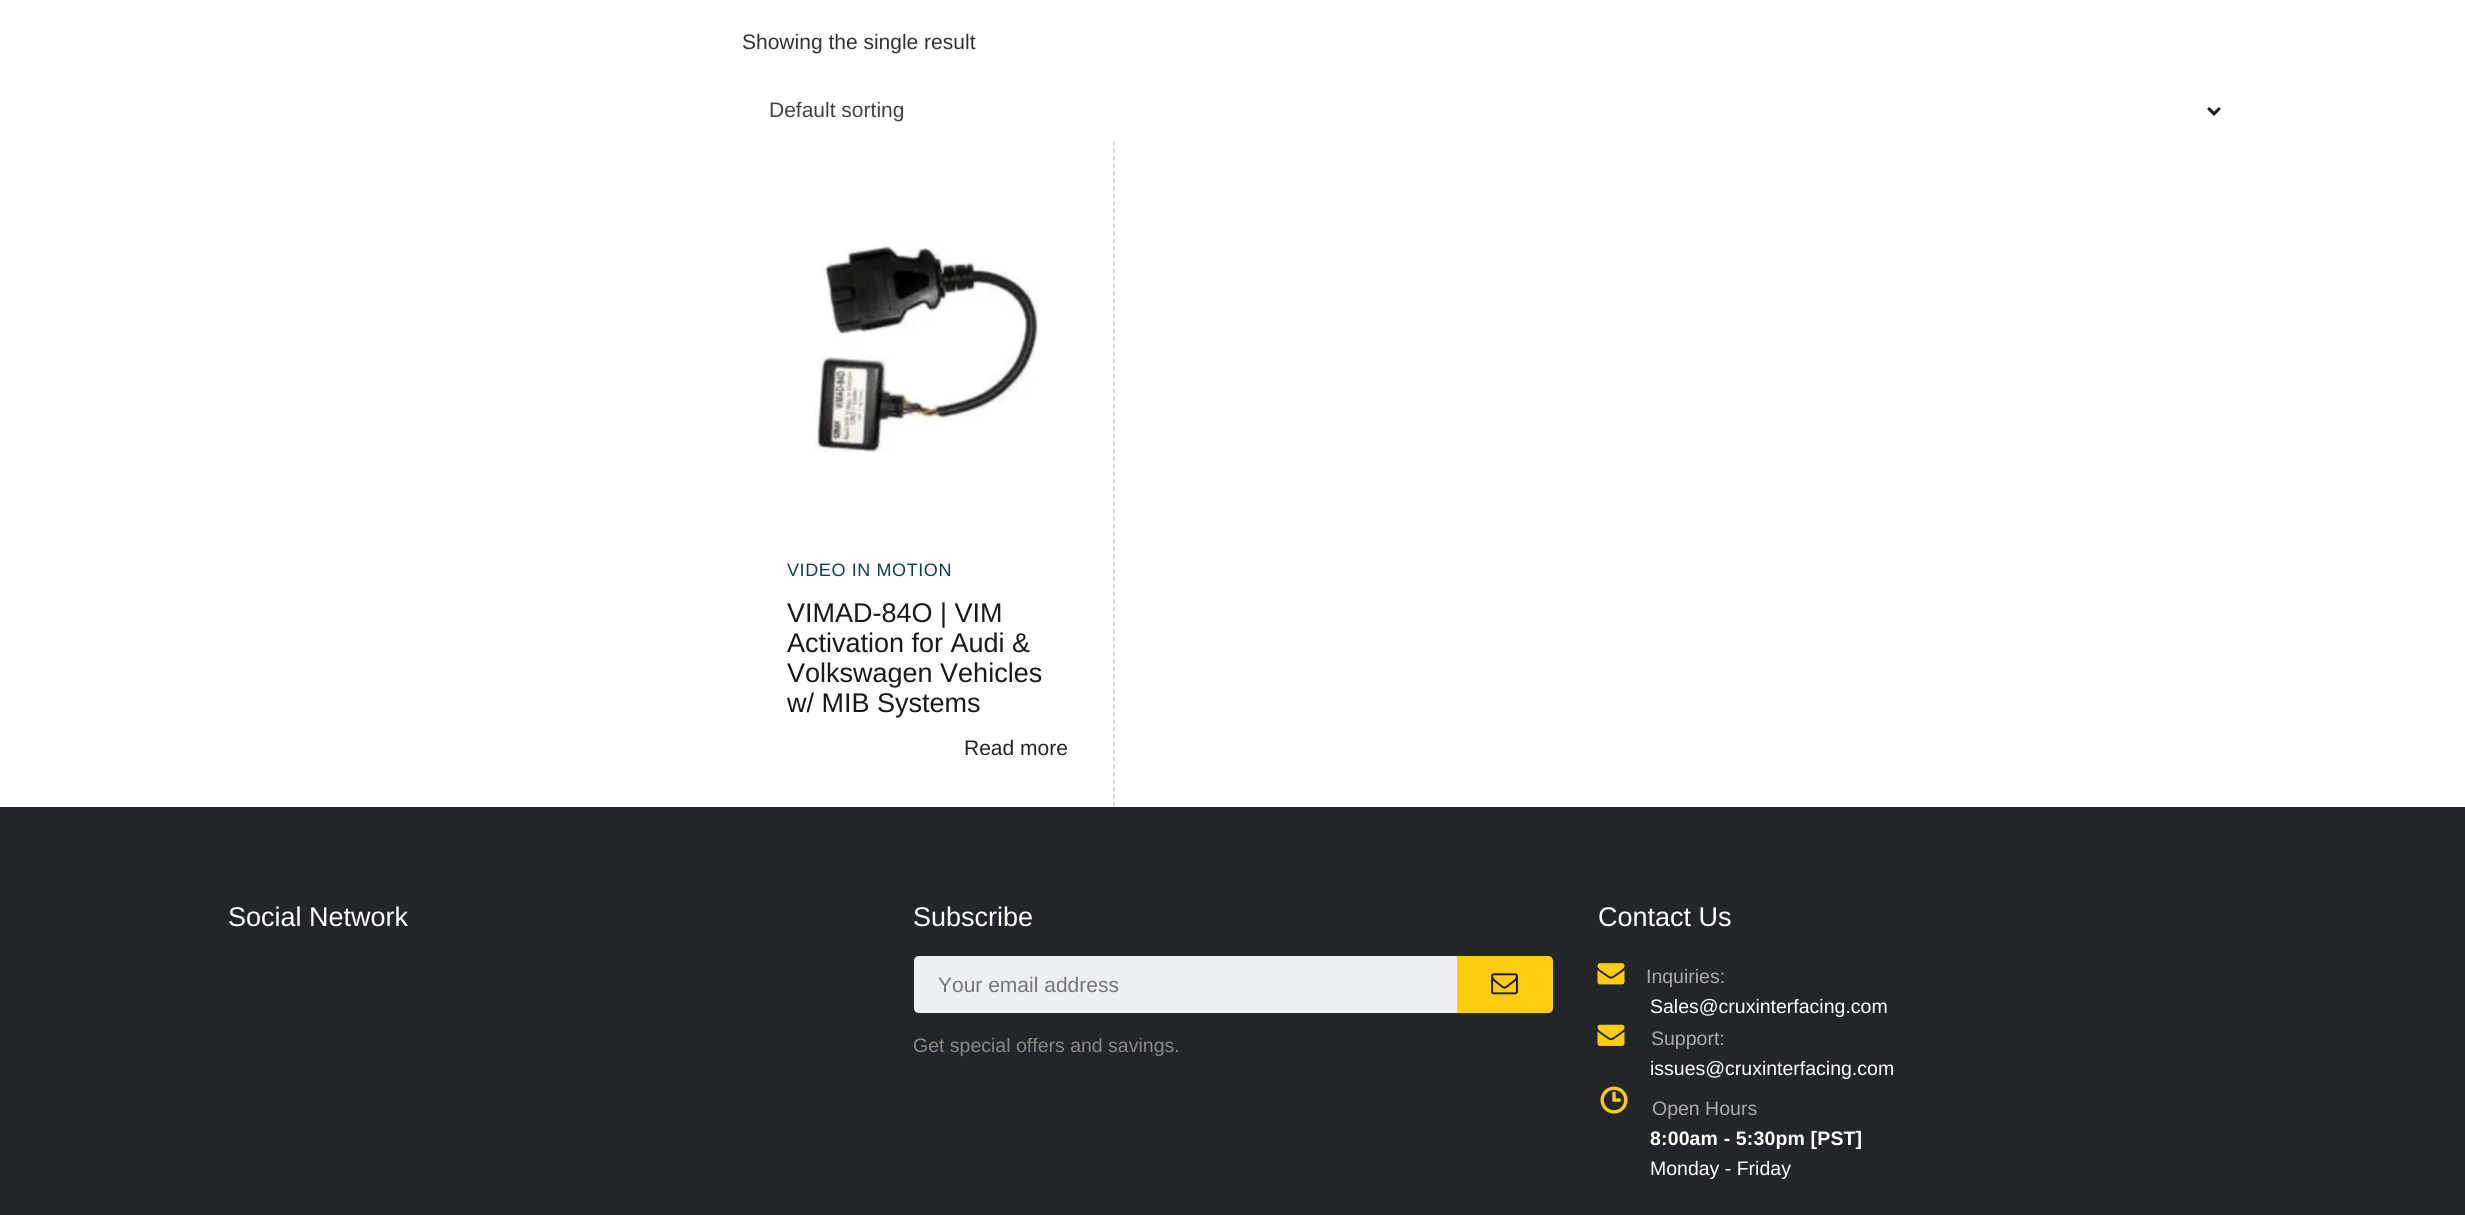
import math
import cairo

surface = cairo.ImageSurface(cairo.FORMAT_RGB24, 2465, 1215)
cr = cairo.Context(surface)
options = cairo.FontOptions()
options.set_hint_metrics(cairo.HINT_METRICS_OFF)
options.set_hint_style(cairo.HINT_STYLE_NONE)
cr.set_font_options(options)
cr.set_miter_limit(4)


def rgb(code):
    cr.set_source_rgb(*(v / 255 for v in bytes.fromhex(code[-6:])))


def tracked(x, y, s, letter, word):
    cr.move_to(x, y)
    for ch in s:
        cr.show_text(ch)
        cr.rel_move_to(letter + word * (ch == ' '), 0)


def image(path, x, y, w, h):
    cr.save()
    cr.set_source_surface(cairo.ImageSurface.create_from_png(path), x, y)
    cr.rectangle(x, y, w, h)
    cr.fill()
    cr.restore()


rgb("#ffffff")
cr.paint()
image("img/1.png", 2207, 107, 14, 9)
cr.new_path()
cr.move_to(1114, 141)
cr.line_to(1114, 807)
rgb("#cccccc")
cr.set_line_width(1.5)
cr.set_dash([4.5, 3.01])
cr.stroke()
image("img/2.png", 814, 243, 225, 210)
rgb("#232628")
cr.rectangle(0, 807, 2465, 408)
cr.fill()
rgb("#eceff3")
cr.new_path()
cr.move_to(919, 956)
cr.line_to(1457, 956)
cr.line_to(1457, 1013)
cr.line_to(919, 1013)
cr.curve_to(916, 1013, 914, 1011, 914, 1008)
cr.line_to(914, 961)
cr.curve_to(914, 958, 916, 956, 919, 956)
cr.close_path()
cr.fill()
rgb("#ffcc12")
cr.new_path()
cr.move_to(1457, 956)
cr.line_to(1548, 956)
cr.curve_to(1551, 956, 1553, 958, 1553, 961)
cr.line_to(1553, 1008)
cr.curve_to(1553, 1011, 1551, 1013, 1548, 1013)
cr.line_to(1457, 1013)
cr.close_path()
cr.fill()
image("img/3.png", 1491, 973, 27, 22)
image("img/4.png", 1597, 963, 28, 22)
image("img/5.png", 1597, 1024, 28, 22)
image("img/6.png", 1600, 1086, 28, 28)
cr.select_font_face("Liberation Sans")
cr.set_font_size(21)
rgb("#333333")
cr.move_to(742, 49)
cr.show_text("Showing the single result")
rgb("#444444")
cr.move_to(769, 117)
cr.show_text("Default sorting")
cr.set_font_size(18)
rgb("#153e4d")
tracked(787, 576, "VIDEO IN MOTION", 0.6, 0)
cr.set_font_size(27)
rgb("#191919")
for x, y, s in [
    (787, 622, "VIMAD-84O | VIM"),
    (787, 652, "Activation for Audi &"),
    (787, 682, "Volkswagen Vehicles"),
    (787, 712, "w/ MIB Systems"),
]:
    cr.move_to(x, y)
    cr.show_text(s)
cr.set_font_size(21)
rgb("#232628")
cr.move_to(964, 755)
cr.show_text("Read more")
cr.set_font_size(27)
rgb("#ffffff")
cr.move_to(228, 926)
cr.show_text("Social Network")
cr.move_to(913, 926)
cr.show_text("Subscribe")
cr.set_font_size(21)
rgb("#757575")
cr.move_to(938, 992)
cr.show_text("Your email address")
cr.set_font_size(19.5)
rgb("#888888")
cr.move_to(913, 1052)
cr.show_text("Get special offers and savings.")
cr.set_font_size(27)
rgb("#ffffff")
cr.move_to(1598, 926)
cr.show_text("Contact Us")
cr.set_font_size(19.5)
rgb("#aaaaaa")
cr.move_to(1646, 983)
cr.show_text("Inquiries:")
rgb("#ffffff")
cr.move_to(1650, 1013)
cr.show_text("Sales@cruxinterfacing.com")
rgb("#aaaaaa")
cr.move_to(1651, 1045)
cr.show_text("Support:")
rgb("#ffffff")
cr.move_to(1650, 1075)
cr.show_text("issues@cruxinterfacing.com")
rgb("#aaaaaa")
cr.move_to(1652, 1115)
cr.show_text("Open Hours")
cr.select_font_face("Liberation Sans", cairo.FONT_SLANT_NORMAL, cairo.FONT_WEIGHT_BOLD)
rgb("#ffffff")
tracked(1650, 1145, "8:00am - 5:30pm [PST]", 0.15, 0)
cr.select_font_face("Liberation Sans")
cr.move_to(1650, 1175)
cr.show_text("Monday - Friday")
surface.write_to_png("page.png")
